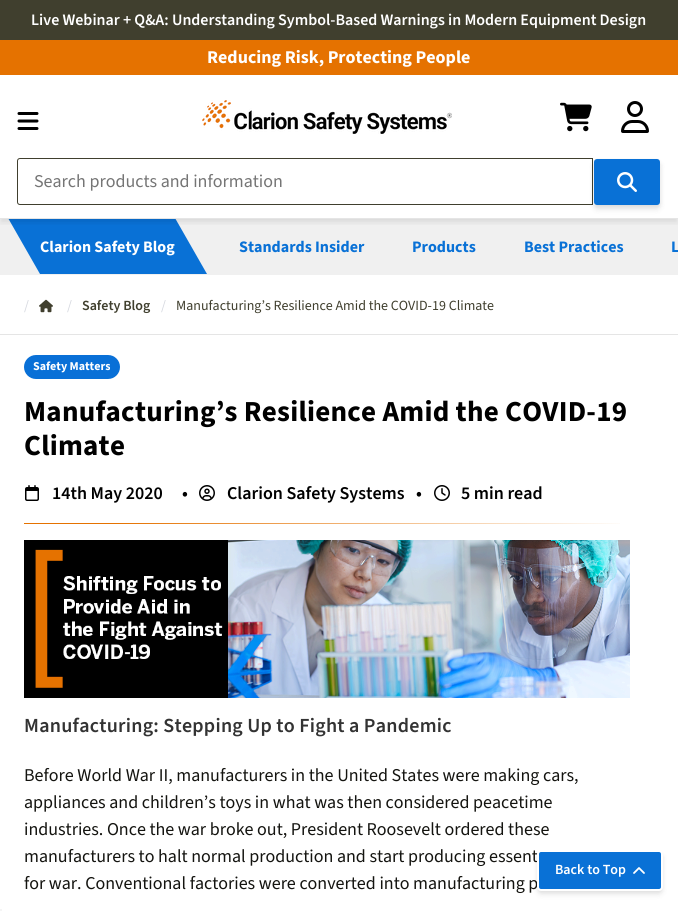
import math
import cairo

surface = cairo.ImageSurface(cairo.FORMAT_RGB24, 678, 911)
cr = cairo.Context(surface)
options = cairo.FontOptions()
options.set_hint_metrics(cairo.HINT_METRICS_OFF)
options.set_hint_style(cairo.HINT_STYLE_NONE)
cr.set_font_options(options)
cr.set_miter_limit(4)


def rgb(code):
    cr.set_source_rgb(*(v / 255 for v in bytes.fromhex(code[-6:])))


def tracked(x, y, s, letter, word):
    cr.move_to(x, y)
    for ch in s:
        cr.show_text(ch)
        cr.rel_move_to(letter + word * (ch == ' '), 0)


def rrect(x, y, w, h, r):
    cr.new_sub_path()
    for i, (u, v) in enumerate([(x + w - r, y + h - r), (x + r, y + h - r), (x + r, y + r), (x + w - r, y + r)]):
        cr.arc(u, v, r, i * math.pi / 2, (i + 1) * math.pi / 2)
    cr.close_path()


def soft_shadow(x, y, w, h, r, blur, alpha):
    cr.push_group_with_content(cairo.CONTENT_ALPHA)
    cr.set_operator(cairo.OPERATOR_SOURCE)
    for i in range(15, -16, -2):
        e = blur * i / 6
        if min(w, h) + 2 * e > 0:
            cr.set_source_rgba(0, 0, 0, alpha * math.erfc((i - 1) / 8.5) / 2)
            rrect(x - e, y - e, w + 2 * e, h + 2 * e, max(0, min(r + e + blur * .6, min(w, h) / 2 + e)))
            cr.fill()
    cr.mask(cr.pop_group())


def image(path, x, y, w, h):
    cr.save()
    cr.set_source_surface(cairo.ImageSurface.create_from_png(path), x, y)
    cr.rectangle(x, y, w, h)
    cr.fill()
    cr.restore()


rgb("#ffffff")
cr.paint()
rgb("#f0f0f0")
cr.rectangle(0, 219, 678, 56)
cr.fill()
rgb("#0971d6")
cr.new_path()
cr.move_to(8, 218)
cr.line_to(175, 218)
cr.line_to(207, 274)
cr.line_to(40, 274)
cr.close_path()
cr.fill()
cr.save()
cr.rectangle(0, 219, 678, 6)
cr.clip()
rgb("#000000")
soft_shadow(1, 5, 676, 217, 0, 3, 0.1)
cr.restore()
for x, y, w, h, color in [
    (0, 218, 678, 1, "#e5e5e5"),
    (0, 40, 678, 35, "#e57200"),
    (0, 0, 678, 40, "#403f2e"),
]:
    rgb(color)
    cr.rectangle(x, y, w, h)
    cr.fill()
image("img/1.png", 17, 112, 22, 18)
image("img/2.png", 202, 100, 250, 34)
image("img/3.png", 560, 102, 32, 30)
image("img/4.png", 621, 101, 28, 32)
cr.new_path()
cr.move_to(20, 158.5)
cr.line_to(592.5, 158.5)
cr.line_to(592.5, 204.5)
cr.line_to(20, 204.5)
cr.curve_to(18.5, 204.5, 17.5, 203.5, 17.5, 202)
cr.line_to(17.5, 161)
cr.curve_to(17.5, 159.5, 18.5, 158.5, 20, 158.5)
cr.close_path()
cr.set_line_width(1)
cr.stroke()
rgb("#000000")
soft_shadow(594, 161, 66, 46, 3, 2, 0.06)
soft_shadow(594, 163, 66, 46, 3, 3, 0.1)
rgb("#0971d6")
rrect(594, 159, 66, 46, 3)
cr.fill()
image("img/5.png", 617, 172, 20, 20)
image("img/6.png", 39, 299, 14, 14)
rgb("#e5e5e5")
cr.rectangle(0, 334, 678, 1)
cr.fill()
rgb("#0970d7")
rrect(24, 355, 96, 24, 12)
cr.fill()
image("img/7.png", 25, 485, 14, 16)
image("img/8.png", 199, 485, 16, 16)
image("img/9.png", 434, 485, 16, 16)
image("img/10.png", 24, 523, 596, 1)
image("img/11.png", 24, 540, 606, 158)
rgb("#000000")
soft_shadow(538, 853, 124, 39, 3, 2, 0.06)
soft_shadow(538, 855, 124, 39, 3, 3, 0.1)
rgb("#f5f5f5")
cr.rectangle(0, 909, 2, 2)
cr.fill()
cr.select_font_face("Source Sans 3 SemiBold")
cr.set_font_size(16)
rgb("#ffffff")
cr.move_to(31, 25)
cr.show_text("Live Webinar + Q&A: Understanding Symbol-Based Warnings in Modern Equipment Design")
cr.select_font_face("Source Sans 3", cairo.FONT_SLANT_NORMAL, cairo.FONT_WEIGHT_BOLD)
cr.set_font_size(18)
cr.move_to(207, 63)
cr.show_text("Reducing Risk, Protecting People")
cr.select_font_face("Source Sans 3 ExtraLight")
rgb("#757575")
cr.move_to(34, 187)
cr.show_text("Search products and information")
cr.select_font_face("Source Sans 3", cairo.FONT_SLANT_NORMAL, cairo.FONT_WEIGHT_BOLD)
cr.set_font_size(16)
rgb("#ffffff")
cr.move_to(40, 252)
cr.show_text("Clarion Safety Blog")
rgb("#0971d6")
for x, y, s in [
    (239, 252, "Standards Insider"),
    (412, 252, "Products"),
    (524, 252, "Best Practices"),
    (671, 252, "L"),
]:
    cr.move_to(x, y)
    cr.show_text(s)
cr.select_font_face("Source Sans 3 ExtraLight")
cr.set_font_size(14)
rgb("#d6d9e0")
cr.move_to(24, 310)
cr.show_text("/")
cr.move_to(67, 310)
cr.show_text("/")
cr.select_font_face("Source Sans 3 SemiBold")
rgb("#403f2e")
cr.move_to(82, 310)
cr.show_text("Safety Blog")
cr.select_font_face("Source Sans 3 ExtraLight")
rgb("#d6d9e0")
cr.move_to(161, 310)
cr.show_text("/")
rgb("#403f2e")
cr.move_to(176, 310)
cr.show_text("Manufacturing’s Resilience Amid the COVID-19 Climate")
cr.select_font_face("Source Sans 3", cairo.FONT_SLANT_NORMAL, cairo.FONT_WEIGHT_BOLD)
cr.set_font_size(12)
rgb("#ffffff")
cr.move_to(33, 370)
cr.show_text("Safety Matters")
cr.set_font_size(29)
rgb("#000000")
tracked(24, 421, "Manufacturing’s Resilience Amid the COVID-19", 0.25, 0)
tracked(24, 455, "Climate", 0.25, 0)
cr.select_font_face("Source Sans 3 SemiBold")
cr.set_font_size(18)
for x, y, s in [
    (52, 499, "14th May 2020"),
    (182, 499, "•"),
    (227, 499, "Clarion Safety Systems"),
    (416, 499, "•"),
    (461, 499, "5 min read"),
]:
    cr.move_to(x, y)
    cr.show_text(s)
cr.set_font_size(20)
rgb("#333333")
tracked(24, 732, "Manufacturing: Stepping Up to Fight a Pandemic", 0.25, 0)
cr.select_font_face("Source Sans 3 ExtraLight")
cr.set_font_size(18)
rgb("#141410")
for x, y, s in [
    (24, 781, "Before World War II, manufacturers in the United States were making cars,"),
    (24, 808, "appliances and children’s toys in what was then considered peacetime"),
    (24, 835, "industries. Once the war broke out, President Roosevelt ordered these"),
    (24, 862, "manufacturers to halt normal production and start producing essent"),
    (24, 889, "for war. Conventional factories were converted into manufacturing p"),
]:
    cr.move_to(x, y)
    cr.show_text(s)
rgb("#0971d6")
rrect(538, 851, 124, 39, 3)
cr.fill_preserve()
rgb("#ffffff")
cr.set_line_width(2)
cr.stroke()
cr.select_font_face("Source Sans 3 SemiBold")
cr.set_font_size(14)
cr.move_to(555, 874)
cr.show_text("Back to Top")
cr.new_path()
cr.move_to(634, 873)
cr.line_to(639, 868)
cr.line_to(644, 873)
cr.set_line_width(1.8)
cr.set_line_cap(cairo.LINE_CAP_ROUND)
cr.set_line_join(cairo.LINE_JOIN_ROUND)
cr.stroke()
surface.write_to_png("page.png")
